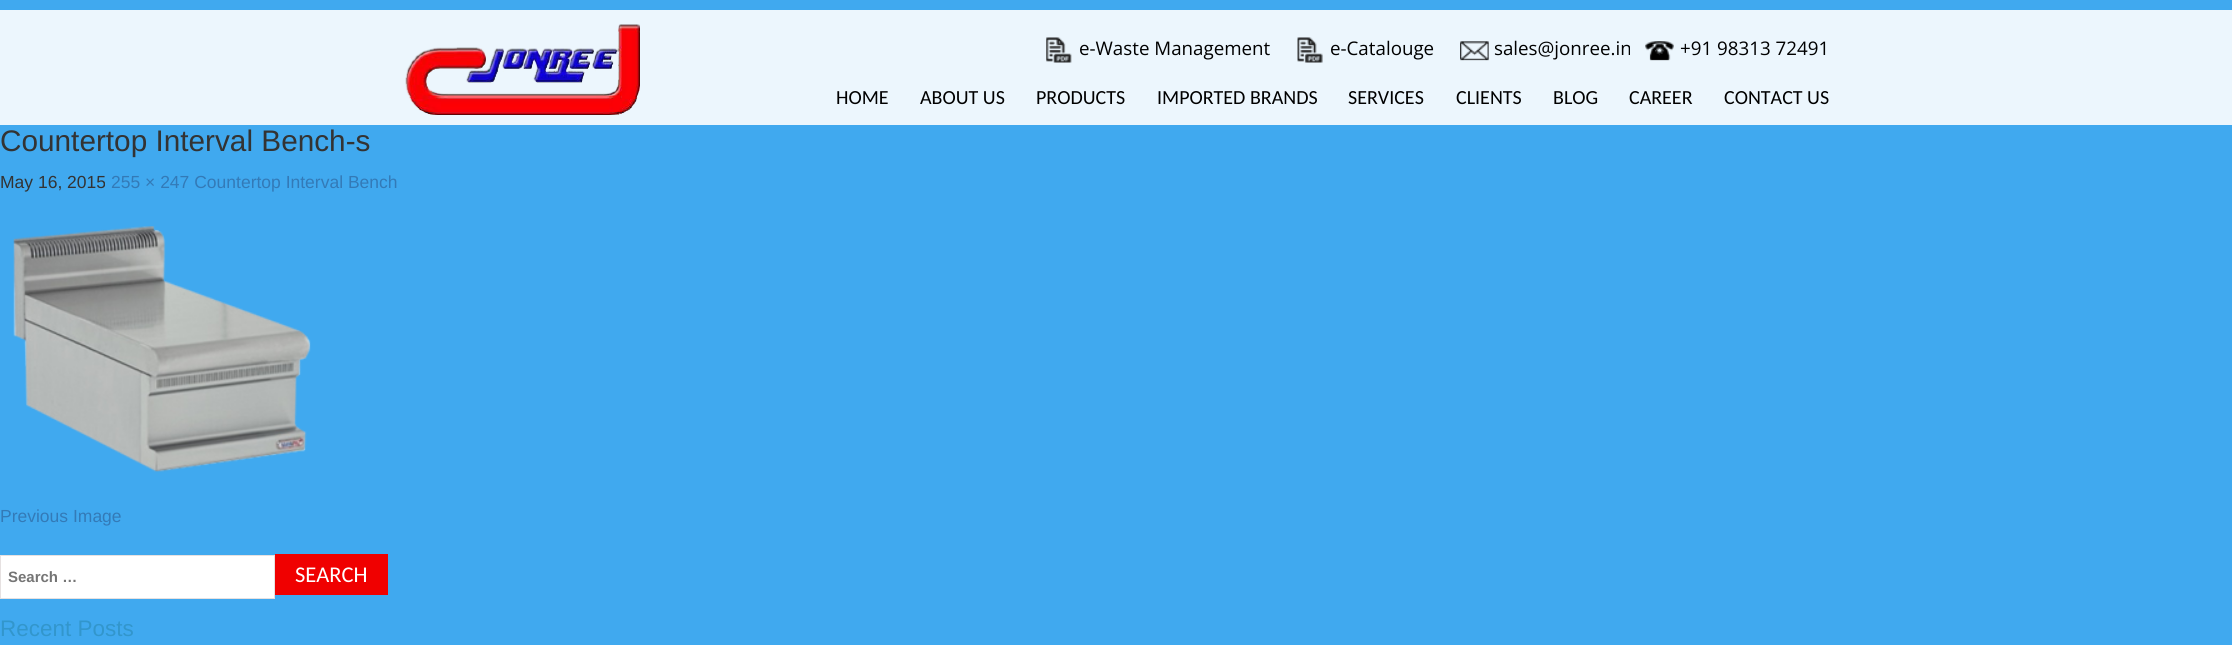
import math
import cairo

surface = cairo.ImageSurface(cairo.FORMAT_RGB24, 2232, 645)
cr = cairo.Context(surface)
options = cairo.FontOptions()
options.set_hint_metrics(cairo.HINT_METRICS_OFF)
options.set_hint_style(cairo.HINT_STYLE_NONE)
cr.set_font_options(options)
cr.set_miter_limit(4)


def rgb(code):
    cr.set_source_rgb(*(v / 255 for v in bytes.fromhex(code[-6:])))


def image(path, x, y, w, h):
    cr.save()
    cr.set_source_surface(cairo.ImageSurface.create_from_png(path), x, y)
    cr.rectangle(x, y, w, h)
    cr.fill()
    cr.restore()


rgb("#40a9ef")
cr.paint()
rgb("#ecf6fd")
cr.rectangle(0, 10, 2232, 115)
cr.fill()
image("img/1.png", 405, 24, 235, 91)
image("img/2.png", 1046, 37, 26, 26)
image("img/3.png", 1297, 37, 26, 26)
image("img/4.png", 1460, 41, 29, 20)
image("img/5.png", 1645, 41, 29, 20)
image("img/6.png", 13, 226, 298, 246)
rgb("#ffffff")
cr.rectangle(0.5, 555.5, 274, 43)
cr.fill_preserve()
rgb("#e6e1e1")
cr.set_line_width(1)
cr.stroke()
rgb("#f00000")
cr.rectangle(275, 554, 113, 41)
cr.fill()
cr.select_font_face("Open Sans")
cr.set_font_size(18.75)
rgb("#000000")
for x, y, s in [
    (1079, 55, "e-Waste Management"),
    (1330, 55, "e-Catalouge"),
    (1494, 55, "sales@jonree.in"),
    (1680, 55, "+91 98313 72491"),
]:
    cr.move_to(x, y)
    cr.show_text(s)
cr.select_font_face("Carlito")
cr.set_font_size(20)
for x, y, s in [
    (836, 104, "HOME"),
    (920, 104, "ABOUT US"),
    (1036, 104, "PRODUCTS"),
    (1157, 104, "IMPORTED BRANDS"),
    (1348, 104, "SERVICES"),
    (1456, 104, "CLIENTS"),
    (1553, 104, "BLOG"),
    (1629, 104, "CAREER"),
    (1724, 104, "CONTACT US"),
]:
    cr.move_to(x, y)
    cr.show_text(s)
cr.select_font_face("Liberation Sans")
cr.set_font_size(29.75)
rgb("#333333")
cr.move_to(0, 151)
cr.show_text("Countertop Interval Bench-s")
cr.set_font_size(17.5)
cr.move_to(0, 188)
cr.show_text("May 16, 2015")
rgb("#337ab7")
cr.move_to(111, 188)
cr.show_text("255 × 247 Countertop Interval Bench")
cr.move_to(0, 522)
cr.show_text("Previous Image")
cr.select_font_face("Liberation Sans", cairo.FONT_SLANT_NORMAL, cairo.FONT_WEIGHT_BOLD)
cr.set_font_size(15)
rgb("#757575")
cr.move_to(8, 582)
cr.show_text("Search …")
cr.select_font_face("Carlito")
cr.set_font_size(22.5)
rgb("#ffffff")
cr.move_to(295, 582)
cr.show_text("SEARCH")
cr.select_font_face("Liberation Sans")
rgb("#3296cc")
cr.move_to(0, 636)
cr.show_text("Recent Posts")
surface.write_to_png("page.png")
